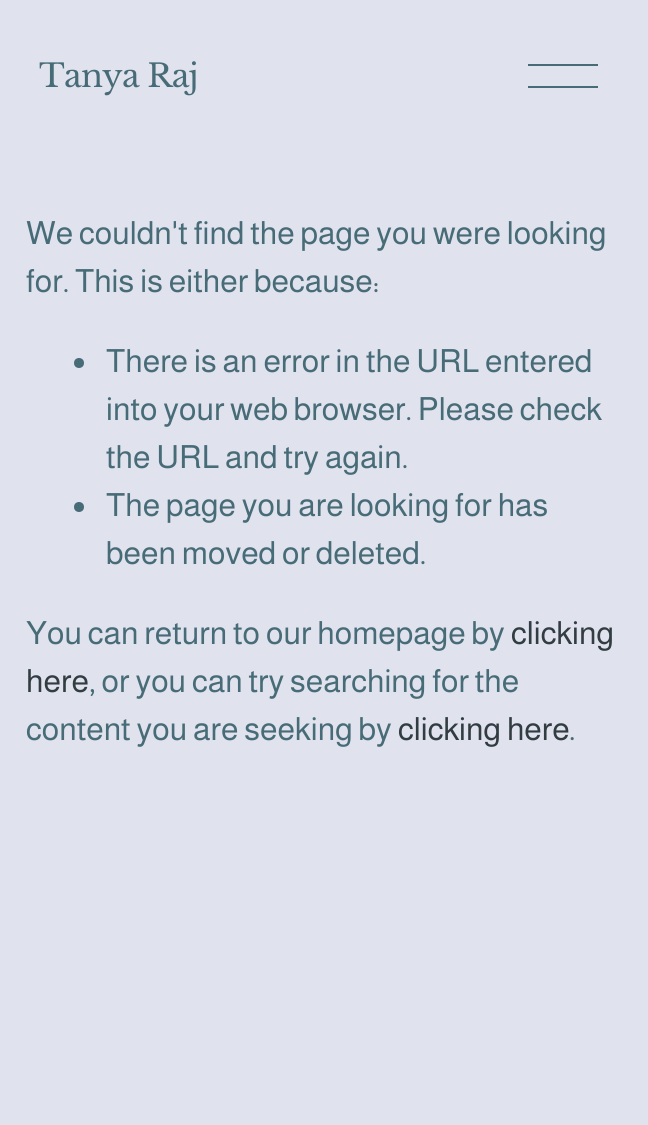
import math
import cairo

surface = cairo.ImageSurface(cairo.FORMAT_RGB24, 648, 1125)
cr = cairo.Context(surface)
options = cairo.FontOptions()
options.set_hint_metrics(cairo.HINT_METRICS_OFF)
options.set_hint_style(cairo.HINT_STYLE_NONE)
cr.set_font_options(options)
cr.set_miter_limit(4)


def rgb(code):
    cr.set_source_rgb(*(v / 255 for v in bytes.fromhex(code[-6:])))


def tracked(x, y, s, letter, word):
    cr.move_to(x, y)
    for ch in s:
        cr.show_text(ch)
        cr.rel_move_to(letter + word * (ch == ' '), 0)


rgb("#e0e2ed")
cr.paint()
rgb("#476c77")
cr.rectangle(528, 64, 70, 2)
cr.fill()
cr.rectangle(528, 86, 70, 2)
cr.fill()
cr.arc(79, 363, 5, 0, 2 * math.pi)
cr.fill()
cr.arc(79, 507, 5, 0, 2 * math.pi)
cr.fill()
cr.select_font_face("Libre Baskerville")
cr.set_font_size(32)
tracked(39, 87, "Tanya Raj", -0.75, 0)
cr.select_font_face("Almarai")
for x, y, s in [
    (26, 244, "We couldn't find the page you were looking"),
    (26, 292, "for. This is either because:"),
    (106, 372, "There is an error in the URL entered"),
    (106, 420, "into your web browser. Please check"),
    (106, 468, "the URL and try again."),
    (106, 516, "The page you are looking for has"),
    (106, 564, "been moved or deleted."),
    (26, 644, "You can return to our homepage by"),
]:
    cr.move_to(x, y)
    cr.show_text(s)
rgb("#313d41")
cr.move_to(511, 644)
cr.show_text("clicking")
cr.move_to(26, 692)
cr.show_text("here")
rgb("#476c77")
cr.move_to(89, 692)
cr.show_text(", or you can try searching for the")
cr.move_to(26, 740)
cr.show_text("content you are seeking by")
rgb("#313d41")
cr.move_to(398, 740)
cr.show_text("clicking here")
rgb("#476c77")
cr.move_to(569, 740)
cr.show_text(".")
surface.write_to_png("page.png")
